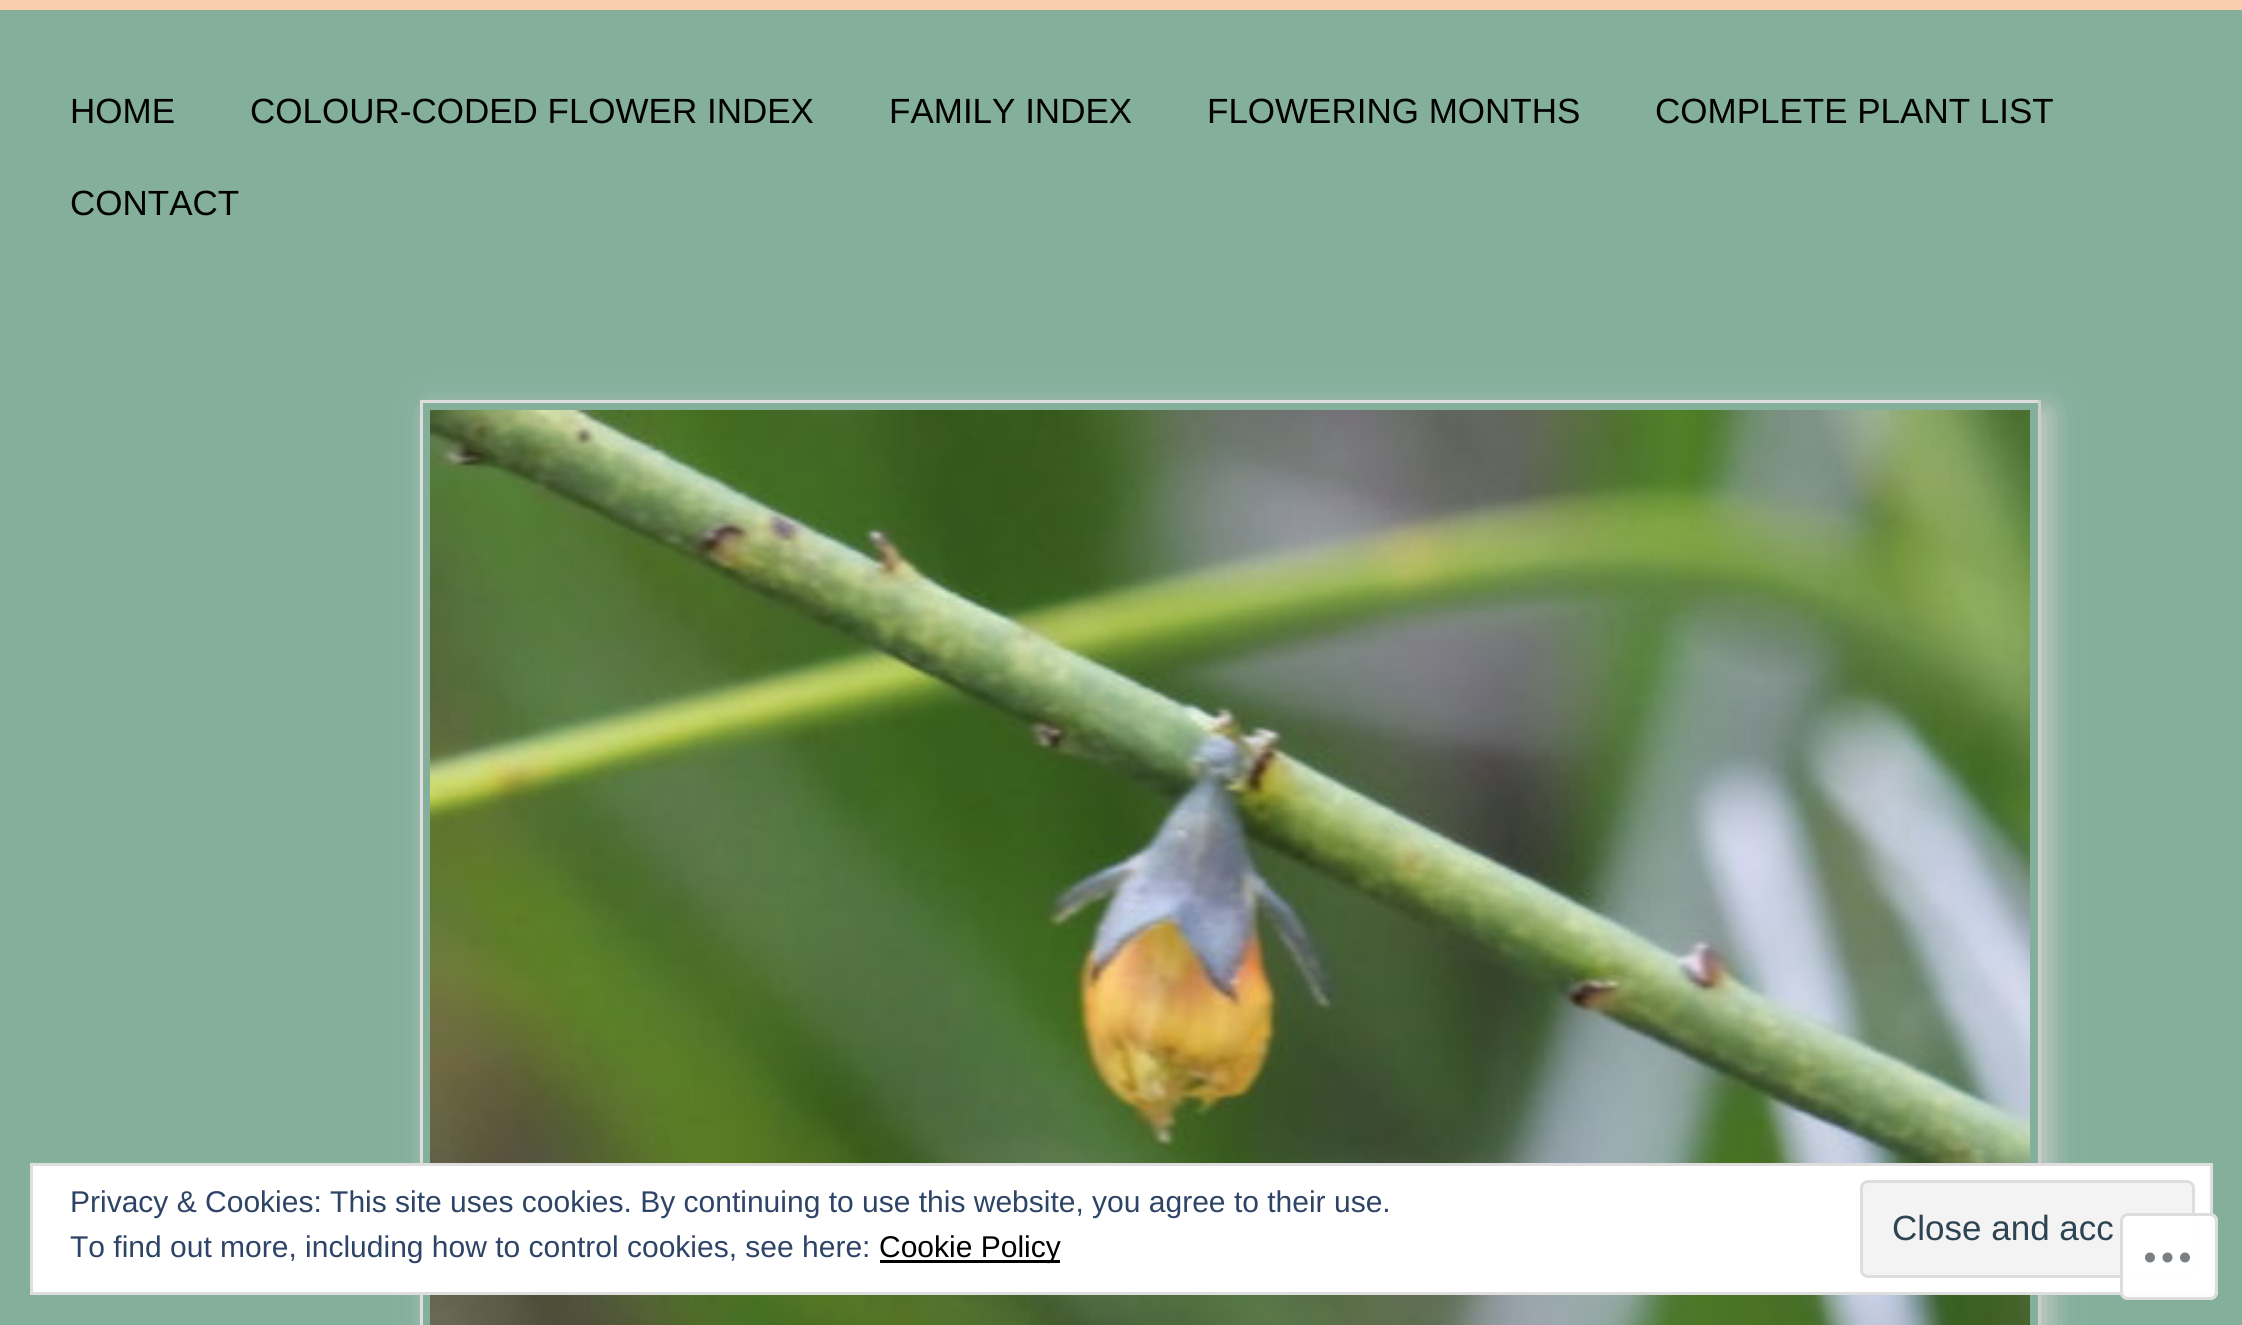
import math
import cairo

surface = cairo.ImageSurface(cairo.FORMAT_RGB24, 2242, 1325)
cr = cairo.Context(surface)
options = cairo.FontOptions()
options.set_hint_metrics(cairo.HINT_METRICS_OFF)
options.set_hint_style(cairo.HINT_STYLE_NONE)
cr.set_font_options(options)
cr.set_miter_limit(4)


def rgb(code):
    cr.set_source_rgb(*(v / 255 for v in bytes.fromhex(code[-6:])))


def rrect(x, y, w, h, r):
    cr.new_sub_path()
    for i, (u, v) in enumerate([(x + w - r, y + h - r), (x + r, y + h - r), (x + r, y + r), (x + w - r, y + r)]):
        cr.arc(u, v, r, i * math.pi / 2, (i + 1) * math.pi / 2)
    cr.close_path()


def soft_shadow(x, y, w, h, r, blur, alpha):
    cr.push_group_with_content(cairo.CONTENT_ALPHA)
    cr.set_operator(cairo.OPERATOR_SOURCE)
    for i in range(15, -16, -2):
        e = blur * i / 6
        if min(w, h) + 2 * e > 0:
            cr.set_source_rgba(0, 0, 0, alpha * math.erfc((i - 1) / 8.5) / 2)
            rrect(x - e, y - e, w + 2 * e, h + 2 * e, max(0, min(r + e + blur * .6, min(w, h) / 2 + e)))
            cr.fill()
    cr.mask(cr.pop_group())


def image(path, x, y, w, h):
    cr.save()
    cr.set_source_surface(cairo.ImageSurface.create_from_png(path), x, y)
    cr.rectangle(x, y, w, h)
    cr.fill()
    cr.restore()


rgb("#83af9b")
cr.paint()
rgb("#f9cdad")
cr.rectangle(0, 0, 2242, 10)
cr.fill()
cr.save()
cr.set_fill_rule(cairo.FILL_RULE_EVEN_ODD)
cr.new_path()
cr.move_to(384, 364)
cr.line_to(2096, 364)
cr.line_to(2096, 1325)
cr.line_to(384, 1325)
cr.close_path()
cr.move_to(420, 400)
cr.line_to(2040, 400)
cr.line_to(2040, 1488)
cr.line_to(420, 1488)
cr.close_path()
cr.clip()
rgb("#cccccc")
soft_shadow(430, 410, 1620, 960, 0, 15, 1)
cr.restore()
for x, y, w, h, color in [
    (420, 400, 1620, 3, "#dddddd"),
    (2038, 400, 3, 925, "#cccccc"),
    (420, 400, 3, 925, "#dddddd"),
]:
    rgb(color)
    cr.rectangle(x, y, w, h)
    cr.fill()
image("img/1.png", 430, 410, 1600, 915)
rgb("#ffffff")
cr.rectangle(31.5, 1164.5, 2180, 129)
cr.fill_preserve()
rgb("#dedede")
cr.set_line_width(3)
cr.stroke()
rgb("#f3f3f3")
rrect(1861.5, 1181.5, 332, 95, 6.5)
cr.fill_preserve()
rgb("#dedede")
cr.stroke()
cr.set_source_rgba(1, 1, 1, 0.98)
rrect(2120, 1213, 98, 87, 8)
cr.fill()
rrect(2121.5, 1214.5, 95, 84, 6.5)
cr.set_source_rgba(0.863, 0.863, 0.871, 0.98)
cr.stroke()
image("img/2.png", 2145, 1252, 45, 11)
rgb("#000000")
cr.rectangle(880, 1260, 180, 3)
cr.fill()
cr.select_font_face("Liberation Sans")
cr.set_font_size(35)
for x, y, s in [
    (70, 123, "HOME"),
    (250, 123, "COLOUR-CODED FLOWER INDEX"),
    (889, 123, "FAMILY INDEX"),
    (1207, 123, "FLOWERING MONTHS"),
    (1655, 123, "COMPLETE PLANT LIST"),
    (70, 215, "CONTACT"),
]:
    cr.move_to(x, y)
    cr.show_text(s)
cr.set_font_size(30)
rgb("#2e4467")
cr.move_to(70, 1212)
cr.show_text("Privacy & Cookies: This site uses cookies. By continuing to use this website, you agree to their use.")
cr.set_font_size(35)
rgb("#2e4453")
cr.move_to(1892, 1240)
cr.show_text("Close and acc")
cr.set_font_size(30)
rgb("#2e4467")
cr.move_to(70, 1257)
cr.show_text("To find out more, including how to control cookies, see here:")
rgb("#000000")
cr.move_to(879, 1257)
cr.show_text("Cookie Policy")
surface.write_to_png("page.png")
